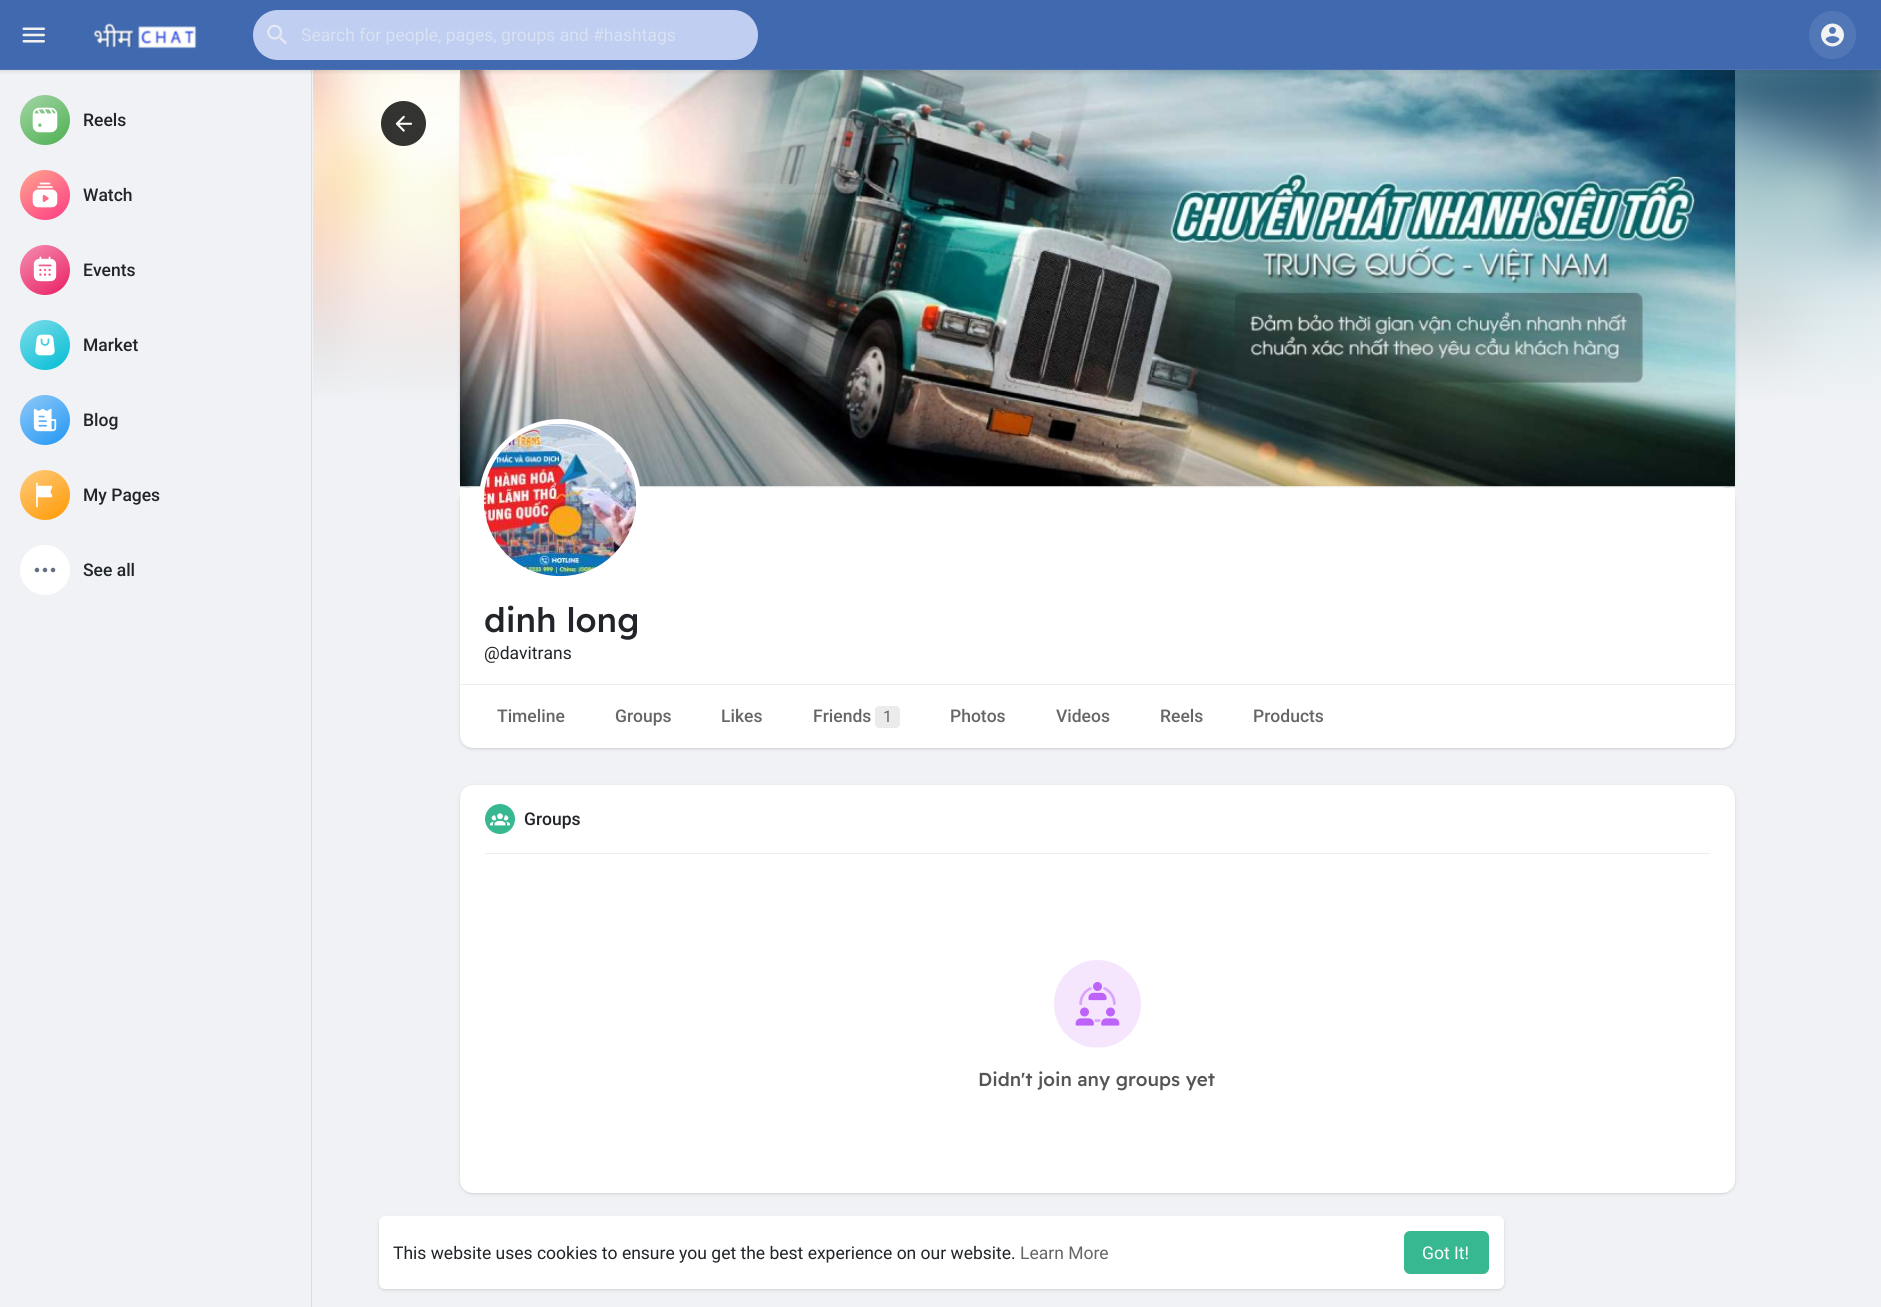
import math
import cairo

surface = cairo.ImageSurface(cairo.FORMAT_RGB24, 1881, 1307)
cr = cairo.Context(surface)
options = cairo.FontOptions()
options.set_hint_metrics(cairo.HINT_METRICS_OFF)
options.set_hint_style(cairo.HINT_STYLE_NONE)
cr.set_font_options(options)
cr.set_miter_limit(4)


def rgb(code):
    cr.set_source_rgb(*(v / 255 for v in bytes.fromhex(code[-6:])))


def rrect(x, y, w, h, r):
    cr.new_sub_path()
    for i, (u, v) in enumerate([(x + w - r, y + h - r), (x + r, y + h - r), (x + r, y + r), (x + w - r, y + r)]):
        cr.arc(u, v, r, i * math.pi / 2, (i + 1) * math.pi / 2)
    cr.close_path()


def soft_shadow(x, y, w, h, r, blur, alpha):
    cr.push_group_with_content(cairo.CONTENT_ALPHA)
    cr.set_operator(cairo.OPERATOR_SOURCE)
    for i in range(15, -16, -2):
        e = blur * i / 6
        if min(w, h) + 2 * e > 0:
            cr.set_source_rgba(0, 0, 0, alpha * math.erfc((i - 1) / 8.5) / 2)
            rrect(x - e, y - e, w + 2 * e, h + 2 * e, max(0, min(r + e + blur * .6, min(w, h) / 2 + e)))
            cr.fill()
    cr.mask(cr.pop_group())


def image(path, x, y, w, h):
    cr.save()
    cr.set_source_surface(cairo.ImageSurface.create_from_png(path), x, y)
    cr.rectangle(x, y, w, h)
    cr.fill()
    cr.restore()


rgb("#f0f2f5")
cr.paint()
image("img/14.png", 313, 70, 1568, 332)
gradient = cairo.LinearGradient(1097, 70, 1097, 488)
gradient.add_color_stop_rgba(0, 1, 1, 1, 0.1)
gradient.add_color_stop_rgba(0.8, 0.941, 0.949, 0.961, 1)
gradient.add_color_stop_rgba(1, 0.941, 0.949, 0.961, 1)
cr.set_source(gradient)
cr.rectangle(313, 70, 1568, 332)
cr.fill()
rgb("#000000")
soft_shadow(460, 71, 1275, 418, 13, 1, 0.06)
soft_shadow(460, 71, 1275, 418, 13, 2, 0.1)
rgb("#4069af")
cr.rectangle(0, 0, 1881, 70)
cr.fill()
image("img/1.png", 22, 27, 23, 16)
image("img/2.png", 93, 23, 104, 26)
rgb("#c0cff1")
rrect(253, 10, 505, 50, 25)
cr.fill()
image("img/3.png", 267, 24, 20, 21)
rgb("#dcdcdc")
cr.rectangle(311, 70, 1, 1237)
cr.fill()
rgb("#ffffff")
rrect(460, 70, 1275, 418, 13)
cr.fill()
image("img/13.png", 460, 70, 1275, 417)
image("img/4.png", 0, 69, 1881, 5)
rgb("#5277b6")
rrect(1809, 11, 47, 48, 23.5)
cr.fill()
image("img/5.png", 1821, 23, 23, 24)
gradient = cairo.LinearGradient(25, 91, 65, 149)
gradient.add_color_stop_rgba(0, 0.647, 0.839, 0.655, 1)
gradient.add_color_stop_rgba(1, 0.298, 0.686, 0.314, 1)
cr.set_source(gradient)
cr.arc(45, 120, 25, 0, 2 * math.pi)
cr.fill()
image("img/6.png", 32, 107, 26, 26)
gradient = cairo.LinearGradient(25, 166, 65, 224)
gradient.add_color_stop_rgba(0, 1, 0.651, 0.553, 1)
gradient.add_color_stop_rgba(1, 0.992, 0.227, 0.518, 1)
cr.set_source(gradient)
cr.arc(45, 195, 25, 0, 2 * math.pi)
cr.fill()
image("img/7.png", 32, 182, 26, 26)
gradient = cairo.LinearGradient(25, 241, 65, 299)
gradient.add_color_stop_rgba(0, 0.957, 0.561, 0.694, 1)
gradient.add_color_stop_rgba(1, 0.914, 0.118, 0.388, 1)
cr.set_source(gradient)
cr.arc(45, 270, 25, 0, 2 * math.pi)
cr.fill()
image("img/8.png", 33, 256, 24, 26)
gradient = cairo.LinearGradient(25, 316, 65, 374)
gradient.add_color_stop_rgba(0, 0.502, 0.871, 0.918, 1)
gradient.add_color_stop_rgba(1, 0, 0.737, 0.831, 1)
cr.set_source(gradient)
cr.arc(45, 345, 25, 0, 2 * math.pi)
cr.fill()
image("img/9.png", 35, 334, 20, 22)
gradient = cairo.LinearGradient(25, 391, 65, 449)
gradient.add_color_stop_rgba(0, 0.565, 0.792, 0.976, 1)
gradient.add_color_stop_rgba(1, 0.129, 0.588, 0.953, 1)
cr.set_source(gradient)
cr.arc(45, 420, 25, 0, 2 * math.pi)
cr.fill()
image("img/10.png", 33, 408, 24, 24)
gradient = cairo.LinearGradient(25, 466, 65, 524)
gradient.add_color_stop_rgba(0, 1, 0.8, 0.502, 1)
gradient.add_color_stop_rgba(1, 1, 0.596, 0, 1)
cr.set_source(gradient)
cr.arc(45, 495, 25, 0, 2 * math.pi)
cr.fill()
image("img/11.png", 36, 482, 17, 26)
rgb("#ffffff")
cr.arc(45, 570, 25, 0, 2 * math.pi)
cr.fill()
image("img/12.png", 34, 567, 22, 6)
cr.set_source_rgba(0, 0, 0, 0.8)
cr.arc(403.5, 123.5, 22.5, 0, 2 * math.pi)
cr.fill()
image("img/15.png", 395, 115, 18, 17)
rgb("#000000")
soft_shadow(460, 489, 1275, 260, 13, 1, 0.06)
soft_shadow(460, 489, 1275, 260, 13, 2, 0.1)
rgb("#ffffff")
cr.new_path()
cr.move_to(460, 488)
cr.line_to(1735, 488)
cr.line_to(1735, 735)
cr.curve_to(1735, 742, 1729, 748, 1722, 748)
cr.line_to(473, 748)
cr.curve_to(466, 748, 460, 742, 460, 735)
cr.close_path()
cr.fill()
cr.arc(560, 500, 81, 0, 2 * math.pi)
cr.fill()
image("img/16.png", 483, 424, 154, 153)
rgb("#eeeeee")
cr.rectangle(460, 684, 1275, 1)
cr.fill()
rgb("#ebebeb")
rrect(875, 706, 25, 22, 4)
cr.fill()
rgb("#000000")
soft_shadow(460, 786, 1275, 408, 13, 1, 0.06)
soft_shadow(460, 786, 1275, 408, 13, 2, 0.1)
rgb("#ffffff")
rrect(460, 785, 1275, 408, 13)
cr.fill()
rgb("#eeeeee")
cr.rectangle(485, 853, 1225, 1)
cr.fill()
rgb("#37b891")
cr.arc(500, 819, 15, 0, 2 * math.pi)
cr.fill()
image("img/17.png", 490, 813, 20, 13)
image("img/18.png", 1054, 960, 87, 88)
rgb("#000000")
soft_shadow(379, 1218, 1125, 72, 6, 1, 0.06)
soft_shadow(379, 1218, 1125, 72, 6, 2, 0.1)
rgb("#ffffff")
rrect(379, 1216, 1125, 73, 6)
cr.fill()
rgb("#37b891")
rrect(1404, 1231, 85, 43, 6)
cr.fill()
cr.select_font_face("Roboto")
cr.set_font_size(17.5)
rgb("#d9e1f2")
cr.move_to(301, 41)
cr.show_text("Search for people, pages, groups and #hashtags")
cr.select_font_face("Roboto Medium")
rgb("#212529")
for x, y, s in [
    (83, 126, "Reels"),
    (83, 201, "Watch"),
    (83, 276, "Events"),
    (83, 351, "Market"),
    (83, 426, "Blog"),
    (83, 501, "My Pages"),
    (83, 576, "See all"),
]:
    cr.move_to(x, y)
    cr.show_text(s)
cr.select_font_face("Readex Pro Medium")
cr.set_font_size(33.75)
cr.move_to(484, 632)
cr.show_text("dinh long")
cr.select_font_face("Roboto")
cr.set_font_size(17.5)
cr.move_to(484, 659)
cr.show_text("@davitrans")
cr.select_font_face("Roboto Medium")
rgb("#666666")
for x, y, s in [
    (497, 722, "Timeline"),
    (615, 722, "Groups"),
    (721, 722, "Likes"),
    (813, 722, "Friends"),
]:
    cr.move_to(x, y)
    cr.show_text(s)
cr.select_font_face("Roboto")
cr.set_font_size(16)
cr.move_to(883, 722)
cr.show_text("1")
cr.select_font_face("Roboto Medium")
cr.set_font_size(17.5)
for x, y, s in [
    (950, 722, "Photos"),
    (1056, 722, "Videos"),
    (1160, 722, "Reels"),
    (1253, 722, "Products"),
]:
    cr.move_to(x, y)
    cr.show_text(s)
rgb("#212529")
cr.move_to(524, 825)
cr.show_text("Groups")
cr.select_font_face("Readex Pro Medium")
cr.set_font_size(18.75)
rgb("#555555")
cr.move_to(978, 1086)
cr.show_text("Didn't join any groups yet")
cr.select_font_face("Roboto")
cr.set_font_size(17.5)
rgb("#212529")
cr.move_to(393, 1259)
cr.show_text("This website uses cookies to ensure you get the best experience on our website.")
rgb("#666666")
cr.move_to(1020, 1259)
cr.show_text("Learn More")
rgb("#ffffff")
cr.move_to(1422, 1259)
cr.show_text("Got It!")
surface.write_to_png("page.png")
